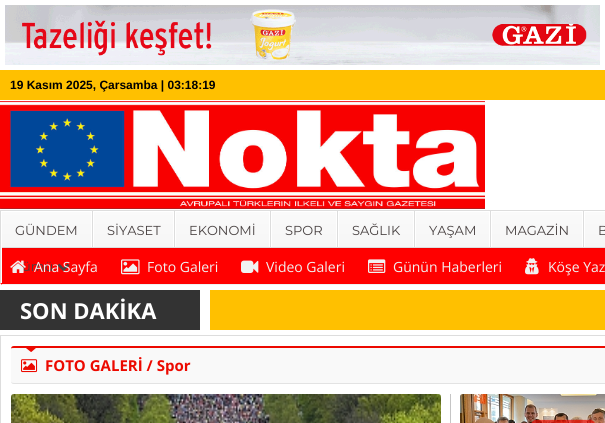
import math
import cairo

surface = cairo.ImageSurface(cairo.FORMAT_RGB24, 605, 423)
cr = cairo.Context(surface)
options = cairo.FontOptions()
options.set_hint_metrics(cairo.HINT_METRICS_OFF)
options.set_hint_style(cairo.HINT_STYLE_NONE)
cr.set_font_options(options)
cr.set_miter_limit(4)


def rgb(code):
    cr.set_source_rgb(*(v / 255 for v in bytes.fromhex(code[-6:])))


def rrect(x, y, w, h, r):
    cr.new_sub_path()
    for i, (u, v) in enumerate([(x + w - r, y + h - r), (x + r, y + h - r), (x + r, y + r), (x + w - r, y + r)]):
        cr.arc(u, v, r, i * math.pi / 2, (i + 1) * math.pi / 2)
    cr.close_path()


def soft_shadow(x, y, w, h, r, blur, alpha):
    cr.push_group_with_content(cairo.CONTENT_ALPHA)
    cr.set_operator(cairo.OPERATOR_SOURCE)
    for i in range(15, -16, -2):
        e = blur * i / 6
        if min(w, h) + 2 * e > 0:
            cr.set_source_rgba(0, 0, 0, alpha * math.erfc((i - 1) / 8.5) / 2)
            rrect(x - e, y - e, w + 2 * e, h + 2 * e, max(0, min(r + e + blur * .6, min(w, h) / 2 + e)))
            cr.fill()
    cr.mask(cr.pop_group())


def image(path, x, y, w, h):
    cr.save()
    cr.set_source_surface(cairo.ImageSurface.create_from_png(path), x, y)
    cr.rectangle(x, y, w, h)
    cr.fill()
    cr.restore()


rgb("#ffffff")
cr.paint()
image("img/1.png", 5, 5, 595, 60)
rgb("#ffc000")
cr.rectangle(0, 70, 605, 30)
cr.fill()
image("img/2.png", 0, 101, 485, 108)
rgb("#ff0000")
cr.new_path()
cr.move_to(0, 248)
cr.line_to(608, 248)
cr.line_to(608, 282)
cr.curve_to(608, 283.5, 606.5, 285, 605, 285)
cr.line_to(3, 285)
cr.curve_to(1.5, 285, 0, 283.5, 0, 282)
cr.close_path()
cr.fill()
rgb("#000000")
soft_shadow(0, 211, 605, 38, 0, 0.5, 0.05)
gradient = cairo.LinearGradient(303, 211, 303, 247)
gradient.add_color_stop_rgba(0, 0.98, 0.98, 0.98, 1)
gradient.add_color_stop_rgba(1, 0.965, 0.965, 0.965, 1)
cr.set_source(gradient)
cr.rectangle(2, 212, 603, 35)
cr.fill()
for x, y, w, h, color in [
    (0, 211, 605, 1, "#ffffff"),
    (0, 210, 605, 1, "#dddddd"),
    (0, 247, 605, 1, "#dddddd"),
    (0, 211, 1, 72, "#dddddd"),
    (91, 211, 1, 36, "#ffffff"),
    (1, 211, 1, 72, "#ffffff"),
    (92, 211, 1, 36, "#dddddd"),
    (173, 211, 1, 36, "#ffffff"),
    (93, 211, 1, 36, "#ffffff"),
    (174, 211, 1, 36, "#dddddd"),
    (269, 211, 1, 36, "#ffffff"),
    (175, 211, 1, 36, "#ffffff"),
    (270, 211, 1, 36, "#dddddd"),
    (336, 211, 1, 36, "#ffffff"),
    (271, 211, 1, 36, "#ffffff"),
    (337, 211, 1, 36, "#dddddd"),
    (413, 211, 1, 36, "#ffffff"),
    (338, 211, 1, 36, "#ffffff"),
    (414, 211, 1, 36, "#dddddd"),
    (489, 211, 1, 36, "#ffffff"),
    (415, 211, 1, 36, "#ffffff"),
    (490, 211, 1, 36, "#dddddd"),
    (582, 211, 1, 36, "#ffffff"),
    (491, 211, 1, 36, "#ffffff"),
    (583, 211, 1, 36, "#dddddd"),
    (584, 211, 1, 36, "#ffffff"),
]:
    rgb(color)
    cr.rectangle(x, y, w, h)
    cr.fill()
image("img/3.png", 57, 263, 13, 9)
rgb("#f0f0f0")
cr.rectangle(2, 284, 603, 1)
cr.fill()
image("img/5.png", 121, 259, 19, 16)
image("img/6.png", 241, 260, 18, 13)
image("img/7.png", 368, 259, 18, 14)
image("img/8.png", 525, 258, 14, 17)
rgb("#333333")
cr.rectangle(0, 290, 200, 40)
cr.fill()
rgb("#ffc000")
cr.rectangle(210, 290, 395, 40)
cr.fill()
cr.rectangle(0.5, 335.5, 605, 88)
rgb("#dddddd")
cr.set_line_width(1)
cr.stroke()
rgb("#f9f9f9")
rrect(11, 346, 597, 38, 3)
cr.fill()
image("img/9.png", 26, 348, 10, 4)
rgb("#ec0900")
cr.new_path()
cr.move_to(14, 346)
cr.curve_to(12, 346, 11, 347, 11, 349)
cr.curve_to(11, 348, 12, 348, 14, 348)
cr.line_to(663, 348)
cr.curve_to(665, 348, 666, 348, 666, 349)
cr.curve_to(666, 347, 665, 346, 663, 346)
cr.close_path()
cr.fill()
rgb("#e3e3e3")
cr.new_path()
cr.move_to(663, 384)
cr.curve_to(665, 384, 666, 383, 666, 381)
cr.curve_to(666, 382, 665, 383, 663, 383)
cr.line_to(14, 383)
cr.curve_to(12, 383, 11, 382, 11, 381)
cr.curve_to(11, 383, 12, 384, 14, 384)
cr.close_path()
cr.fill()
image("img/10.png", 21, 359, 17, 14)
rgb("#c5c5c5")
cr.rectangle(450, 394, 1, 29)
cr.fill()
image("img/11.png", 11, 394, 430, 29)
image("img/12.png", 460, 394, 145, 29)
image("img/13.png", 531, 419, 64, 4)
cr.select_font_face("Liberation Sans", cairo.FONT_SLANT_NORMAL, cairo.FONT_WEIGHT_BOLD)
cr.set_font_size(12)
rgb("#000000")
cr.move_to(10, 89)
cr.show_text("19 Kasım 2025, Çarsamba | 03:18:19")
cr.select_font_face("Montserrat")
cr.set_font_size(13)
rgb("#484141")
for x, y, s in [
    (15, 235, "GÜNDEM"),
    (107, 235, "SİYASET"),
    (189, 235, "EKONOMİ"),
    (285, 235, "SPOR"),
    (352, 235, "SAĞLIK"),
    (429, 235, "YAŞAM"),
    (505, 235, "MAGAZİN"),
    (598, 235, "B"),
    (22, 271, "ümü"),
]:
    cr.move_to(x, y)
    cr.show_text(s)
image("img/4.png", 10, 260, 16, 13)
cr.select_font_face("Open Sans")
cr.set_font_size(14)
rgb("#f1f1f1")
for x, y, s in [
    (34, 272, "Ana Sayfa"),
    (147, 272, "Foto Galeri"),
    (266, 272, "Video Galeri"),
    (393, 272, "Günün Haberleri"),
    (548, 272, "Köşe Yaz"),
]:
    cr.move_to(x, y)
    cr.show_text(s)
cr.select_font_face("Open Sans", cairo.FONT_SLANT_NORMAL, cairo.FONT_WEIGHT_BOLD)
cr.set_font_size(22)
rgb("#ffffff")
cr.move_to(20, 319)
cr.show_text("SON DAKİKA")
cr.set_font_size(15)
rgb("#ec0900")
cr.move_to(45, 371)
cr.show_text("FOTO GALERİ / Spor")
surface.write_to_png("page.png")
